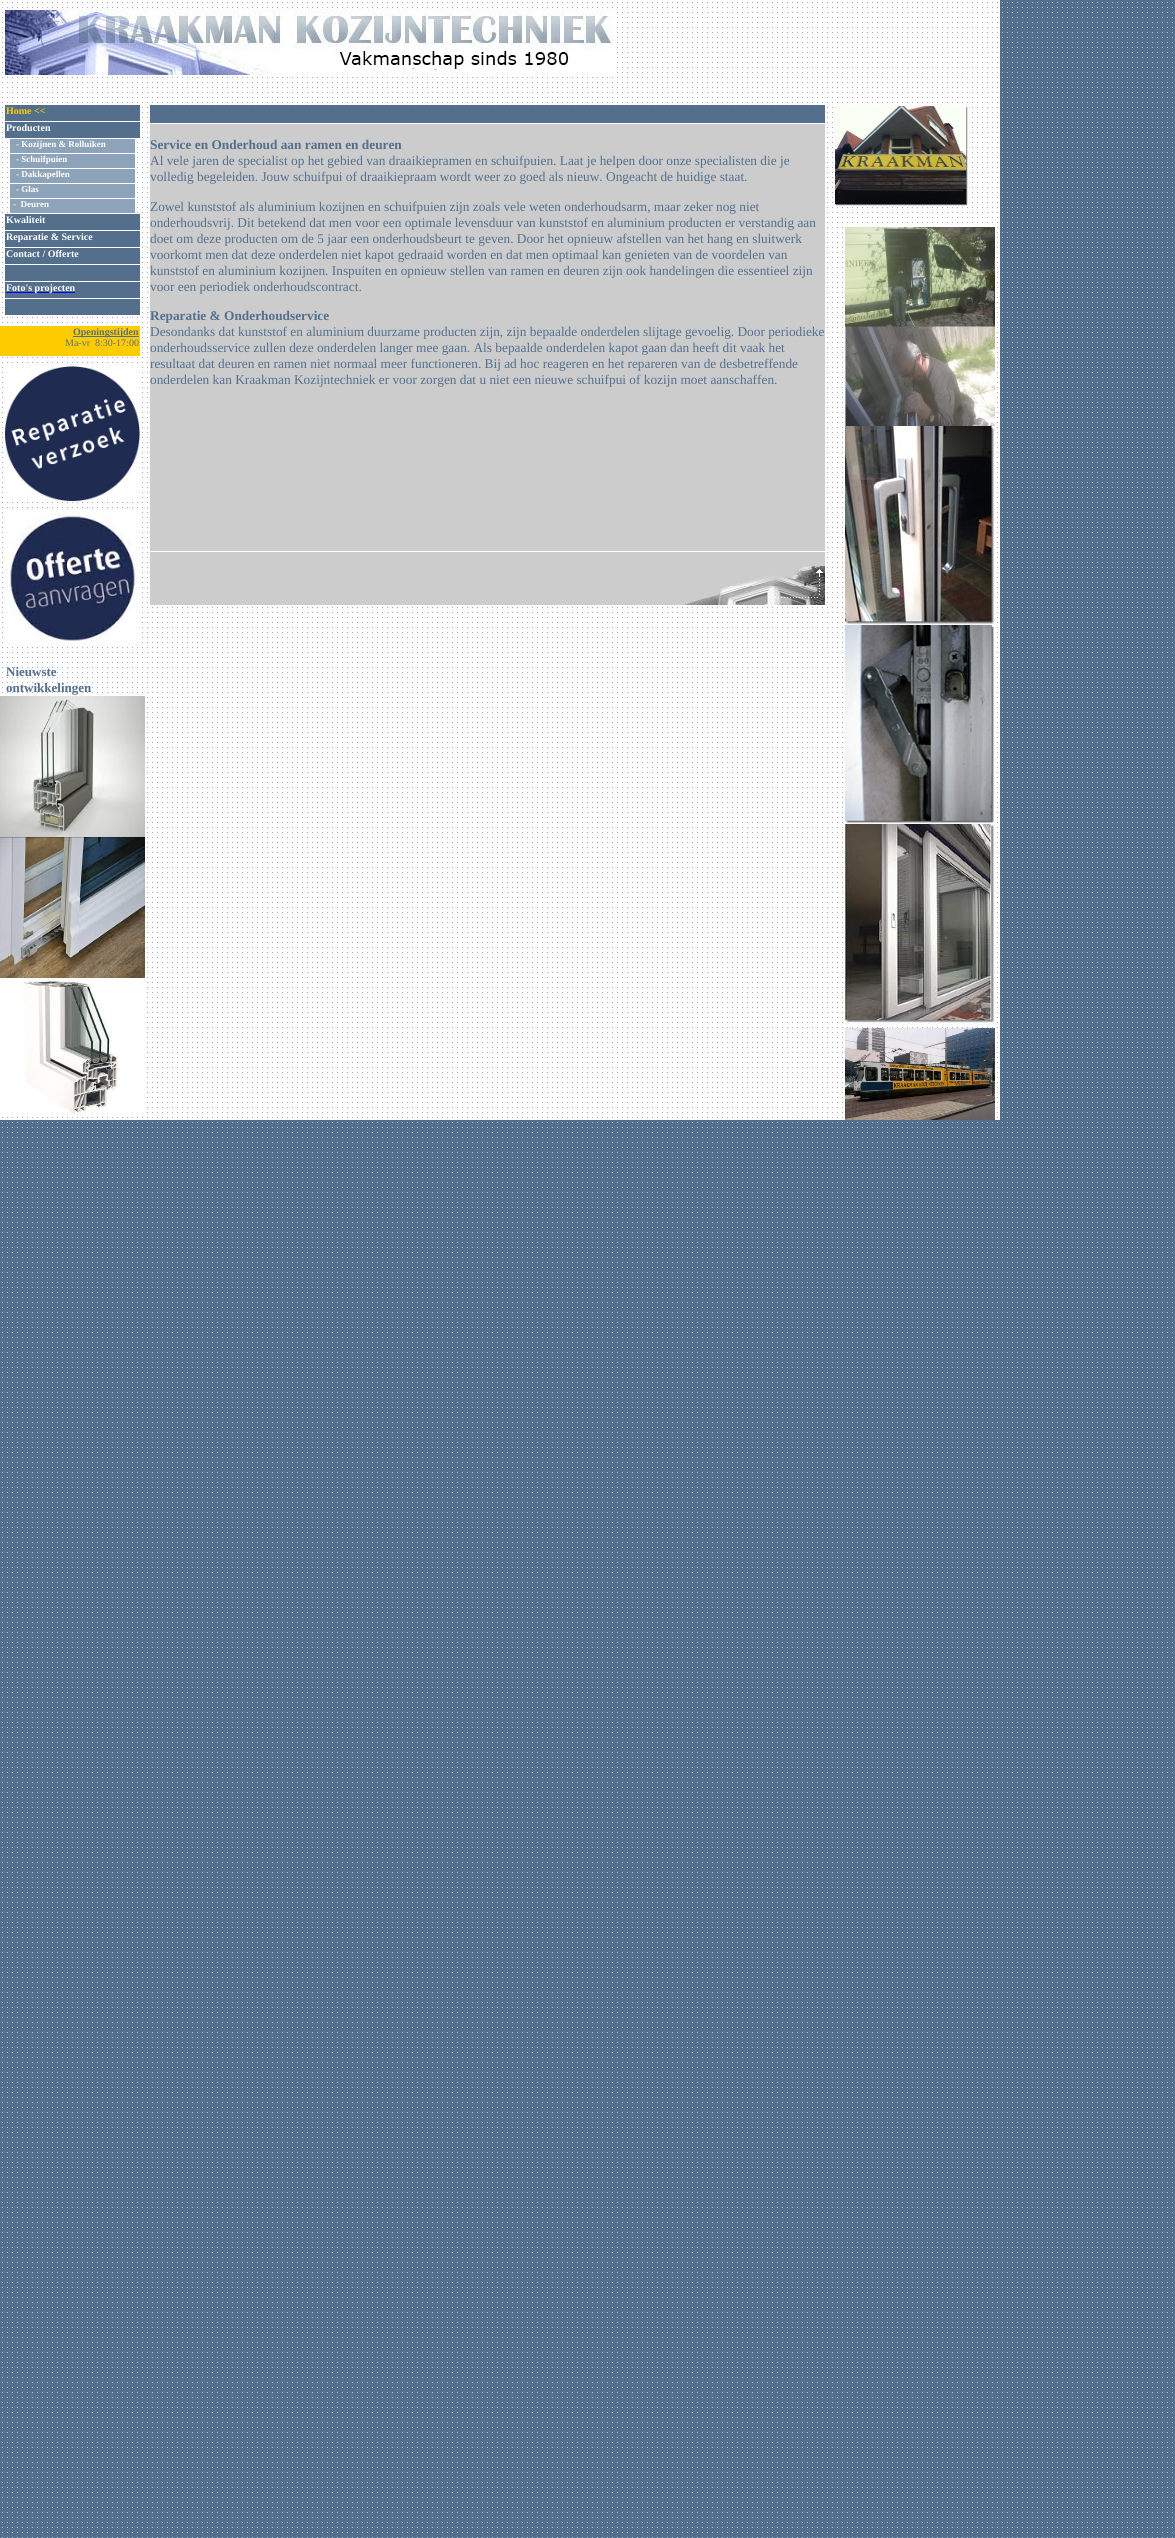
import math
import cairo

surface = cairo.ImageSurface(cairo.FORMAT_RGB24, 1175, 2538)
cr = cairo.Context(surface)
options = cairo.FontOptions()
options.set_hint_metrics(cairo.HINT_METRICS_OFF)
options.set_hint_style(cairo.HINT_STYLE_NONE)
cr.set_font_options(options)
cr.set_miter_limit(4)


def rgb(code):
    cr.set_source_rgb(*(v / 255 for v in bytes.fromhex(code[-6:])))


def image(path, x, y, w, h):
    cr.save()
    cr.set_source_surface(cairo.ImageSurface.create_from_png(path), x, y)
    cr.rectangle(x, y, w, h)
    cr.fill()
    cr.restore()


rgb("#ffffff")
cr.paint()
image("img/1.png", 0, 0, 1175, 2538)
image("img/2.png", 0, 0, 1000, 1120)
image("img/3.png", 5, 10, 610, 65)
for x, y, w, h, color in [
    (5, 105, 135, 16, "#546f8c"),
    (5, 121, 135, 1, "#ffffff"),
    (5, 122, 135, 16, "#546f8c"),
    (5, 138, 135, 1, "#ffffff"),
    (10, 139, 125, 14, "#8da3ba"),
    (10, 153, 125, 1, "#ffffff"),
    (10, 154, 125, 14, "#8da3ba"),
    (10, 168, 125, 1, "#ffffff"),
    (10, 169, 125, 14, "#8da3ba"),
    (10, 183, 125, 1, "#ffffff"),
    (10, 184, 125, 14, "#8da3ba"),
    (10, 198, 125, 1, "#ffffff"),
    (10, 199, 125, 14, "#8da3ba"),
    (10, 213, 125, 1, "#ffffff"),
    (5, 214, 135, 16, "#546f8c"),
    (5, 231, 135, 16, "#546f8c"),
    (5, 247, 135, 1, "#ffffff"),
    (5, 248, 135, 16, "#546f8c"),
    (5, 264, 135, 1, "#ffffff"),
    (5, 265, 135, 16, "#546f8c"),
    (5, 281, 135, 1, "#ffffff"),
    (5, 282, 135, 16, "#546f8c"),
    (5, 298, 135, 1, "#ffffff"),
    (6, 292, 69, 1, "#0000ee"),
    (5, 299, 135, 16, "#546f8c"),
    (0, 326, 140, 30, "#ffcc00"),
    (73, 336, 66, 1, "#546f8c"),
]:
    rgb(color)
    cr.rectangle(x, y, w, h)
    cr.fill()
image("img/4.png", 5, 366, 135, 135)
image("img/5.png", 5, 511, 135, 134)
image("img/6.png", 0, 696, 145, 141)
image("img/7.png", 0, 837, 145, 141)
image("img/8.png", 1, 978, 144, 138)
for x, y, w, h, color in [
    (150, 105, 675, 18, "#546f8c"),
    (150, 124, 675, 427, "#cccccc"),
    (150, 123, 675, 1, "#ffffff"),
    (150, 552, 675, 53, "#cccccc"),
    (150, 551, 675, 1, "#ffffff"),
]:
    rgb(color)
    cr.rectangle(x, y, w, h)
    cr.fill()
image("img/9.png", 682, 566, 143, 39)
image("img/10.png", 835, 106, 133, 100)
image("img/11.png", 845, 227, 150, 199)
image("img/12.png", 845, 426, 150, 199)
image("img/13.png", 845, 625, 150, 199)
image("img/14.png", 845, 824, 150, 199)
image("img/15.png", 845, 1028, 150, 92)
cr.select_font_face("Liberation Serif", cairo.FONT_SLANT_NORMAL, cairo.FONT_WEIGHT_BOLD)
cr.set_font_size(10)
rgb("#ffcc00")
cr.move_to(6, 114)
cr.show_text("Home <<")
rgb("#ffffff")
cr.move_to(6, 131)
cr.show_text("Producten")
cr.set_font_size(9)
for x, y, s in [
    (16, 147, "- Kozijnen & Rolluiken"),
    (16, 162, "- Schuifpuien"),
    (16, 177, "- Dakkapellen"),
    (16, 192, "- Glas"),
    (13, 207, "-  Deuren"),
]:
    cr.move_to(x, y)
    cr.show_text(s)
cr.set_font_size(10)
for x, y, s in [
    (6, 223, "Kwaliteit"),
    (6, 240, "Reparatie & Service"),
    (6, 257, "Contact / Offerte"),
    (6, 291, "Foto's projecten"),
]:
    cr.move_to(x, y)
    cr.show_text(s)
rgb("#546f8c")
cr.move_to(73, 335)
cr.show_text("Openingstijden")
cr.select_font_face("Liberation Serif")
cr.move_to(65, 346)
cr.show_text("Ma-vr  8:30-17:00")
cr.select_font_face("Liberation Serif", cairo.FONT_SLANT_NORMAL, cairo.FONT_WEIGHT_BOLD)
cr.set_font_size(13)
cr.move_to(6, 676)
cr.show_text("Nieuwste")
cr.move_to(6, 692)
cr.show_text("ontwikkelingen")
cr.set_font_size(13.33)
cr.move_to(150, 149)
cr.show_text("Service en Onderhoud aan ramen en deuren")
cr.select_font_face("Liberation Serif")
for x, y, s in [
    (150, 165, "Al vele jaren de specialist op het gebied van draaikiepramen en schuifpuien. Laat je helpen door onze specialisten die je"),
    (150, 181, "volledig begeleiden. Jouw schuifpui of draaikiepraam wordt weer zo goed als nieuw. Ongeacht de huidige staat."),
    (150, 211, "Zowel kunststof als aluminium kozijnen en schuifpuien zijn zoals vele weten onderhoudsarm, maar zeker nog niet"),
    (150, 227, "onderhoudsvrij. Dit betekend dat men voor een optimale levensduur van kunststof en aluminium producten er verstandig aan"),
    (150, 243, "doet om deze producten om de 5 jaar een onderhoudsbeurt te geven. Door het opnieuw afstellen van het hang en sluitwerk"),
    (150, 259, "voorkomt men dat deze onderdelen niet kapot gedraaid worden en dat men optimaal kan genieten van de voordelen van"),
    (150, 275, "kunststof en aluminium kozijnen. Inspuiten en opnieuw stellen van ramen en deuren zijn ook handelingen die essentieel zijn"),
    (150, 291, "voor een periodiek onderhoudscontract."),
]:
    cr.move_to(x, y)
    cr.show_text(s)
cr.select_font_face("Liberation Serif", cairo.FONT_SLANT_NORMAL, cairo.FONT_WEIGHT_BOLD)
cr.move_to(150, 320)
cr.show_text("Reparatie & Onderhoudservice")
cr.select_font_face("Liberation Serif")
for x, y, s in [
    (150, 336, "Desondanks dat kunststof en aluminium duurzame producten zijn, zijn bepaalde onderdelen slijtage gevoelig. Door periodieke"),
    (150, 352, "onderhoudsservice zullen deze onderdelen langer mee gaan. Als bepaalde onderdelen kapot gaan dan heeft dit vaak het"),
    (150, 368, "resultaat dat deuren en ramen niet normaal meer functioneren. Bij ad hoc reageren en het repareren van de desbetreffende"),
    (150, 384, "onderdelen kan Kraakman Kozijntechniek er voor zorgen dat u niet een nieuwe schuifpui of kozijn moet aanschaffen."),
]:
    cr.move_to(x, y)
    cr.show_text(s)
surface.write_to_png("page.png")
